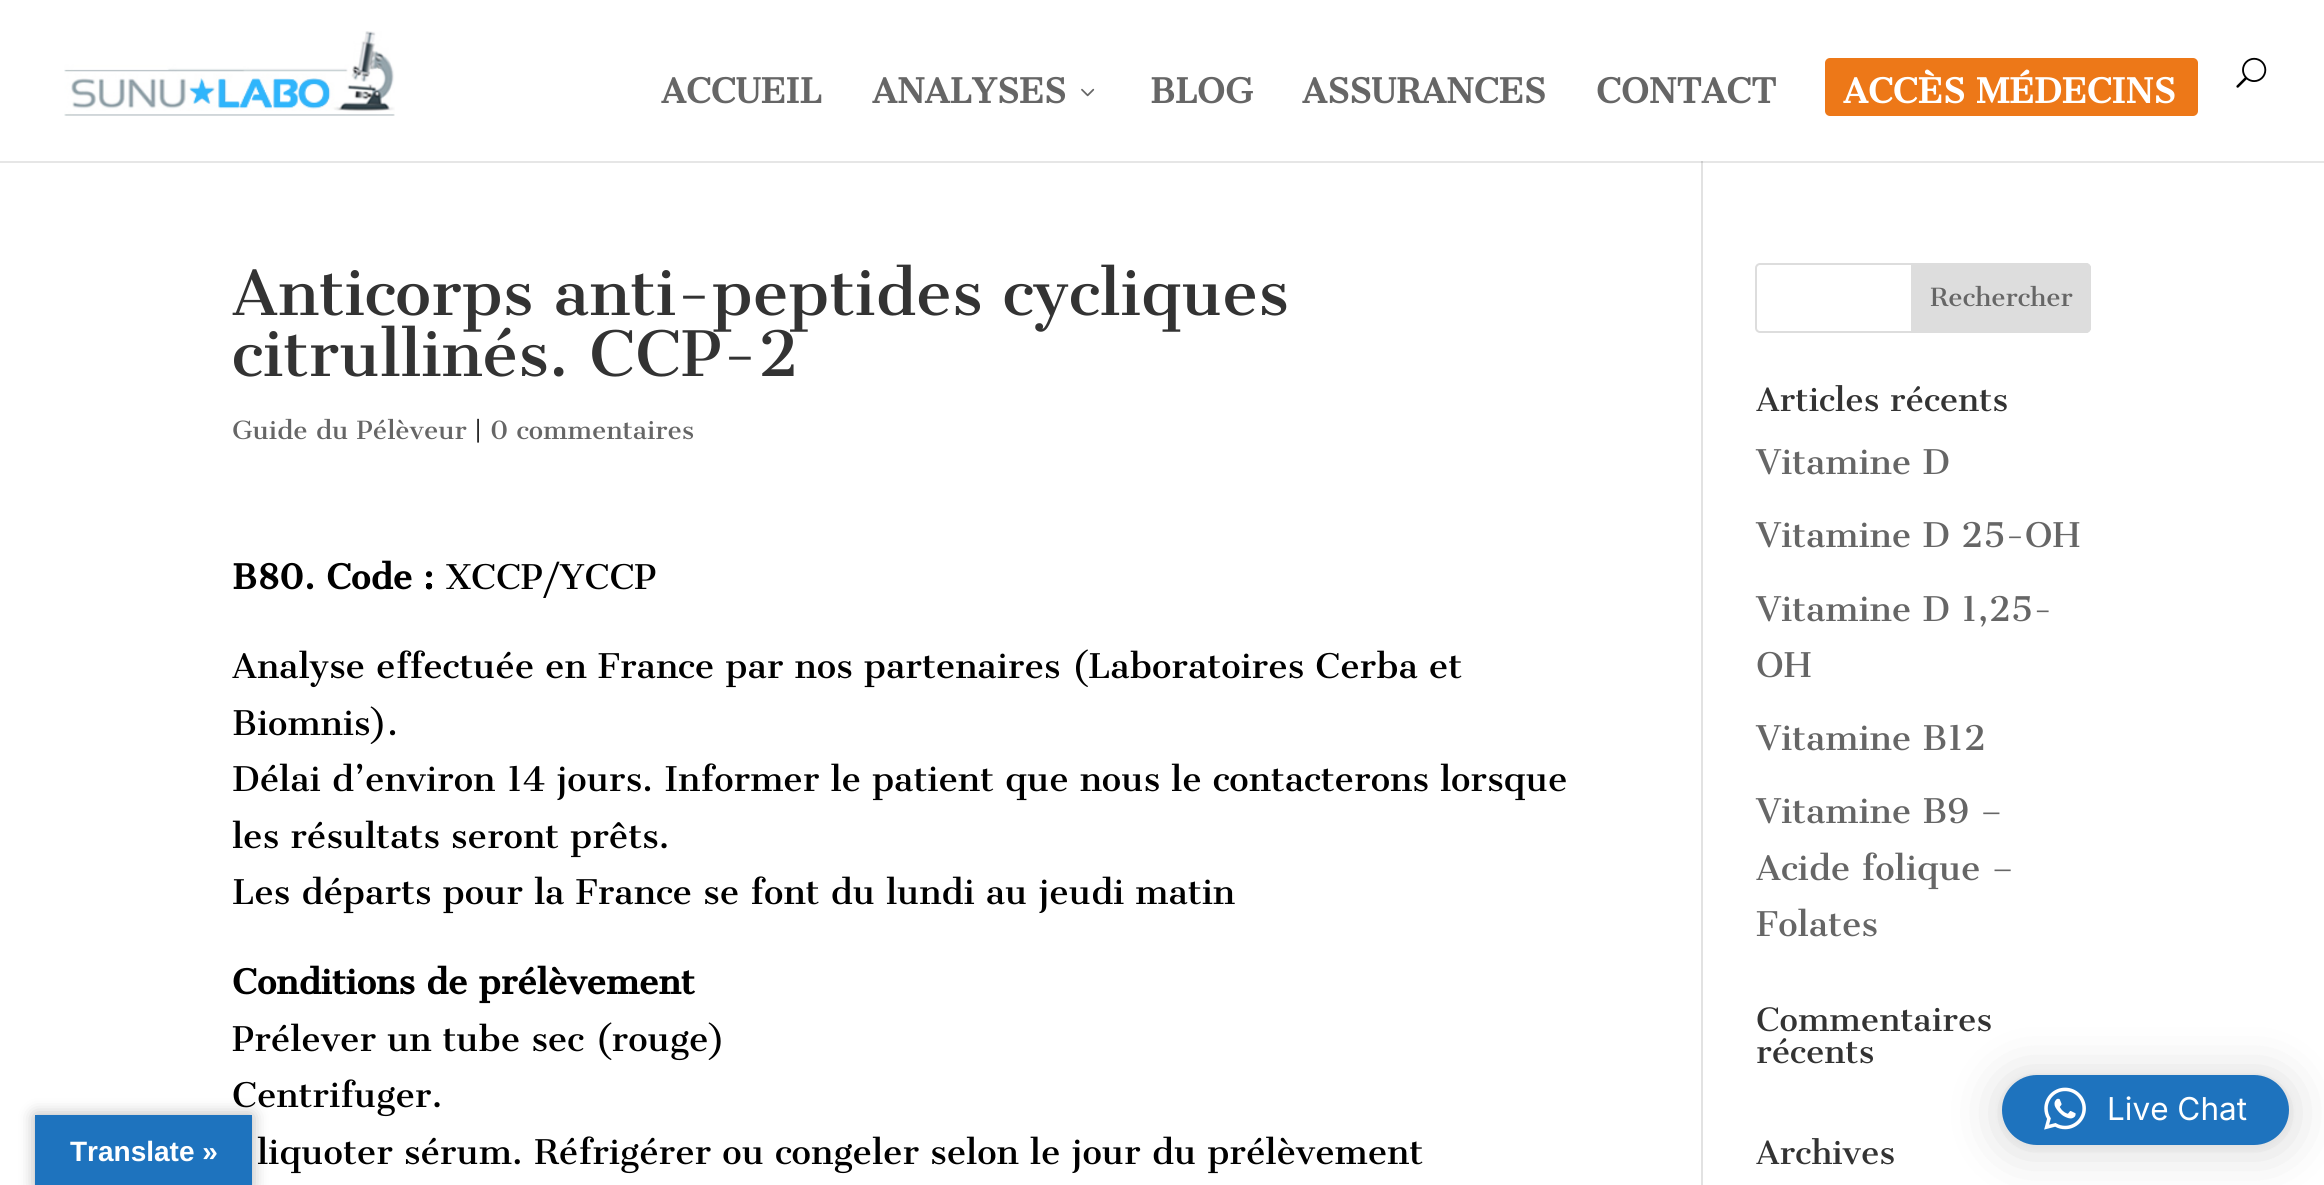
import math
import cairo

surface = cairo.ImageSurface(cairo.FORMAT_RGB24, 2324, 1185)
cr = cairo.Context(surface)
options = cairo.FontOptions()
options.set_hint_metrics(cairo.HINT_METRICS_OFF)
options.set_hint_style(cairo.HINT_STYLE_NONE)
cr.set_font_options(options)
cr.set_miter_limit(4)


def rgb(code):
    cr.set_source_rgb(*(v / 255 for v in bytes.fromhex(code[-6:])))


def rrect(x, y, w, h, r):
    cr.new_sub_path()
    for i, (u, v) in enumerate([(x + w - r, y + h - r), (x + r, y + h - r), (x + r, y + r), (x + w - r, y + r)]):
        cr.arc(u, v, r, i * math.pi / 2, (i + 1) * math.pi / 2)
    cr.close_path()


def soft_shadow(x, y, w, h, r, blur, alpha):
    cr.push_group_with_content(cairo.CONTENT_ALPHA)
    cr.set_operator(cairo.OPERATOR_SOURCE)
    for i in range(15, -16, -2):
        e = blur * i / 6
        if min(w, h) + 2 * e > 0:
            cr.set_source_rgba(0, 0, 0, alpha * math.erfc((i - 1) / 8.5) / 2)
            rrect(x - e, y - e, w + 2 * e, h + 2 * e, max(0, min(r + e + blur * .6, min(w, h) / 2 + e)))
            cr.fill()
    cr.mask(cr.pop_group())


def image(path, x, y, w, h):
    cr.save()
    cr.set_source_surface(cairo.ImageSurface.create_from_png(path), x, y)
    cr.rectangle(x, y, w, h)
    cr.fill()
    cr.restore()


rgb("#ffffff")
cr.paint()
rgb("#e6e6e6")
cr.rectangle(0, 161, 2324, 2)
cr.fill()
image("img/1.png", 64, 31, 331, 85)
image("img/2.png", 1081, 88, 14, 9)
rgb("#ed7818")
rrect(1825, 58, 373, 58, 5)
cr.fill()
image("img/3.png", 2236, 57, 31, 31)
rgb("#e2e2e2")
cr.rectangle(1701, 161, 2, 1024)
cr.fill()
rgb("#cbcbcb")
cr.rectangle(1701, 161, 2, 2)
cr.fill()
rrect(1756, 264, 334, 68, 4)
rgb("#dddddd")
cr.stroke()
cr.new_path()
cr.move_to(1912, 264)
cr.line_to(2086, 264)
cr.curve_to(2088, 264, 2090, 266, 2090, 268)
cr.line_to(2090, 328)
cr.curve_to(2090, 330, 2088, 332, 2086, 332)
cr.line_to(1912, 332)
cr.close_path()
cr.fill_preserve()
cr.stroke()
rgb("#000000")
soft_shadow(2002, 1078, 287, 70, 35, 28, 0.16)
soft_shadow(2002, 1076, 287, 70, 35, 5, 0.06)
rgb("#1e73be")
rrect(2002, 1075, 287, 70, 35)
cr.fill()
image("img/4.png", 2044, 1087, 42, 43)
rgb("#000000")
soft_shadow(35, 1115, 217, 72, 0, 8, 0.3)
cr.select_font_face("Cantata One", cairo.FONT_SLANT_NORMAL, cairo.FONT_WEIGHT_BOLD)
cr.set_font_size(33.25)
rgb("#666666")
for x, y, s in [
    (661, 103, "ACCUEIL"),
    (872, 103, "ANALYSES"),
    (1150, 103, "BLOG"),
    (1302, 103, "ASSURANCES"),
    (1596, 103, "CONTACT"),
]:
    cr.move_to(x, y)
    cr.show_text(s)
rgb("#ffffff")
cr.move_to(1843, 103)
cr.show_text("ACCÈS MÉDECINS")
cr.select_font_face("Cantata One")
cr.set_font_size(61.25)
rgb("#333333")
cr.move_to(232, 315)
cr.show_text("Anticorps anti-peptides cycliques")
cr.move_to(232, 376)
cr.show_text("citrullinés. CCP-2")
cr.set_font_size(24.5)
rgb("#666666")
cr.move_to(232, 439)
cr.show_text("Guide du Pélèveur")
rgb("#000000")
cr.move_to(475, 439)
cr.show_text("|")
rgb("#666666")
cr.move_to(490, 439)
cr.show_text("0 commentaires")
cr.select_font_face("Cantata One", cairo.FONT_SLANT_NORMAL, cairo.FONT_WEIGHT_BOLD)
cr.set_font_size(33.25)
rgb("#000000")
cr.move_to(232, 589)
cr.show_text("B80. Code :")
cr.select_font_face("Cantata One")
for x, y, s in [
    (446, 589, "XCCP/YCCP"),
    (232, 678, "Analyse effectuée en France par nos partenaires (Laboratoires Cerba et"),
    (232, 735, "Biomnis)."),
    (232, 791, "Délai d’environ 14 jours. Informer le patient que nous le contacterons lorsque"),
    (232, 848, "les résultats seront prêts."),
    (232, 904, "Les départs pour la France se font du lundi au jeudi matin"),
]:
    cr.move_to(x, y)
    cr.show_text(s)
cr.select_font_face("Cantata One", cairo.FONT_SLANT_NORMAL, cairo.FONT_WEIGHT_BOLD)
cr.move_to(232, 994)
cr.show_text("Conditions de prélèvement")
cr.select_font_face("Cantata One")
for x, y, s in [
    (232, 1051, "Prélever un tube sec (rouge)"),
    (232, 1107, "Centrifuger."),
    (257, 1164, "liquoter sérum. Réfrigérer ou congeler selon le jour du prélèvement"),
]:
    cr.move_to(x, y)
    cr.show_text(s)
cr.set_font_size(24.5)
rgb("#666666")
cr.move_to(1930, 306)
cr.show_text("Rechercher")
cr.set_font_size(31.5)
rgb("#333333")
cr.move_to(1756, 411)
cr.show_text("Articles récents")
cr.set_font_size(33.25)
rgb("#666666")
for x, y, s in [
    (1756, 474, "Vitamine D"),
    (1756, 547, "Vitamine D 25-OH"),
    (1756, 621, "Vitamine D 1,25-"),
    (1756, 677, "OH"),
    (1756, 750, "Vitamine B12"),
    (1756, 823, "Vitamine B9 –"),
    (1756, 880, "Acide folique –"),
    (1756, 936, "Folates"),
]:
    cr.move_to(x, y)
    cr.show_text(s)
cr.set_font_size(31.5)
rgb("#333333")
for x, y, s in [
    (1756, 1031, "Commentaires"),
    (1756, 1063, "récents"),
    (1756, 1164, "Archives"),
]:
    cr.move_to(x, y)
    cr.show_text(s)
cr.select_font_face("Inter")
rgb("#ffffff")
cr.move_to(2107, 1120)
cr.show_text("Live Chat")
rgb("#1e73be")
cr.rectangle(35, 1115, 217, 70)
cr.fill()
cr.select_font_face("Liberation Sans", cairo.FONT_SLANT_NORMAL, cairo.FONT_WEIGHT_BOLD)
cr.set_font_size(28)
rgb("#ffffff")
cr.move_to(70, 1161)
cr.show_text("Translate »")
surface.write_to_png("page.png")
